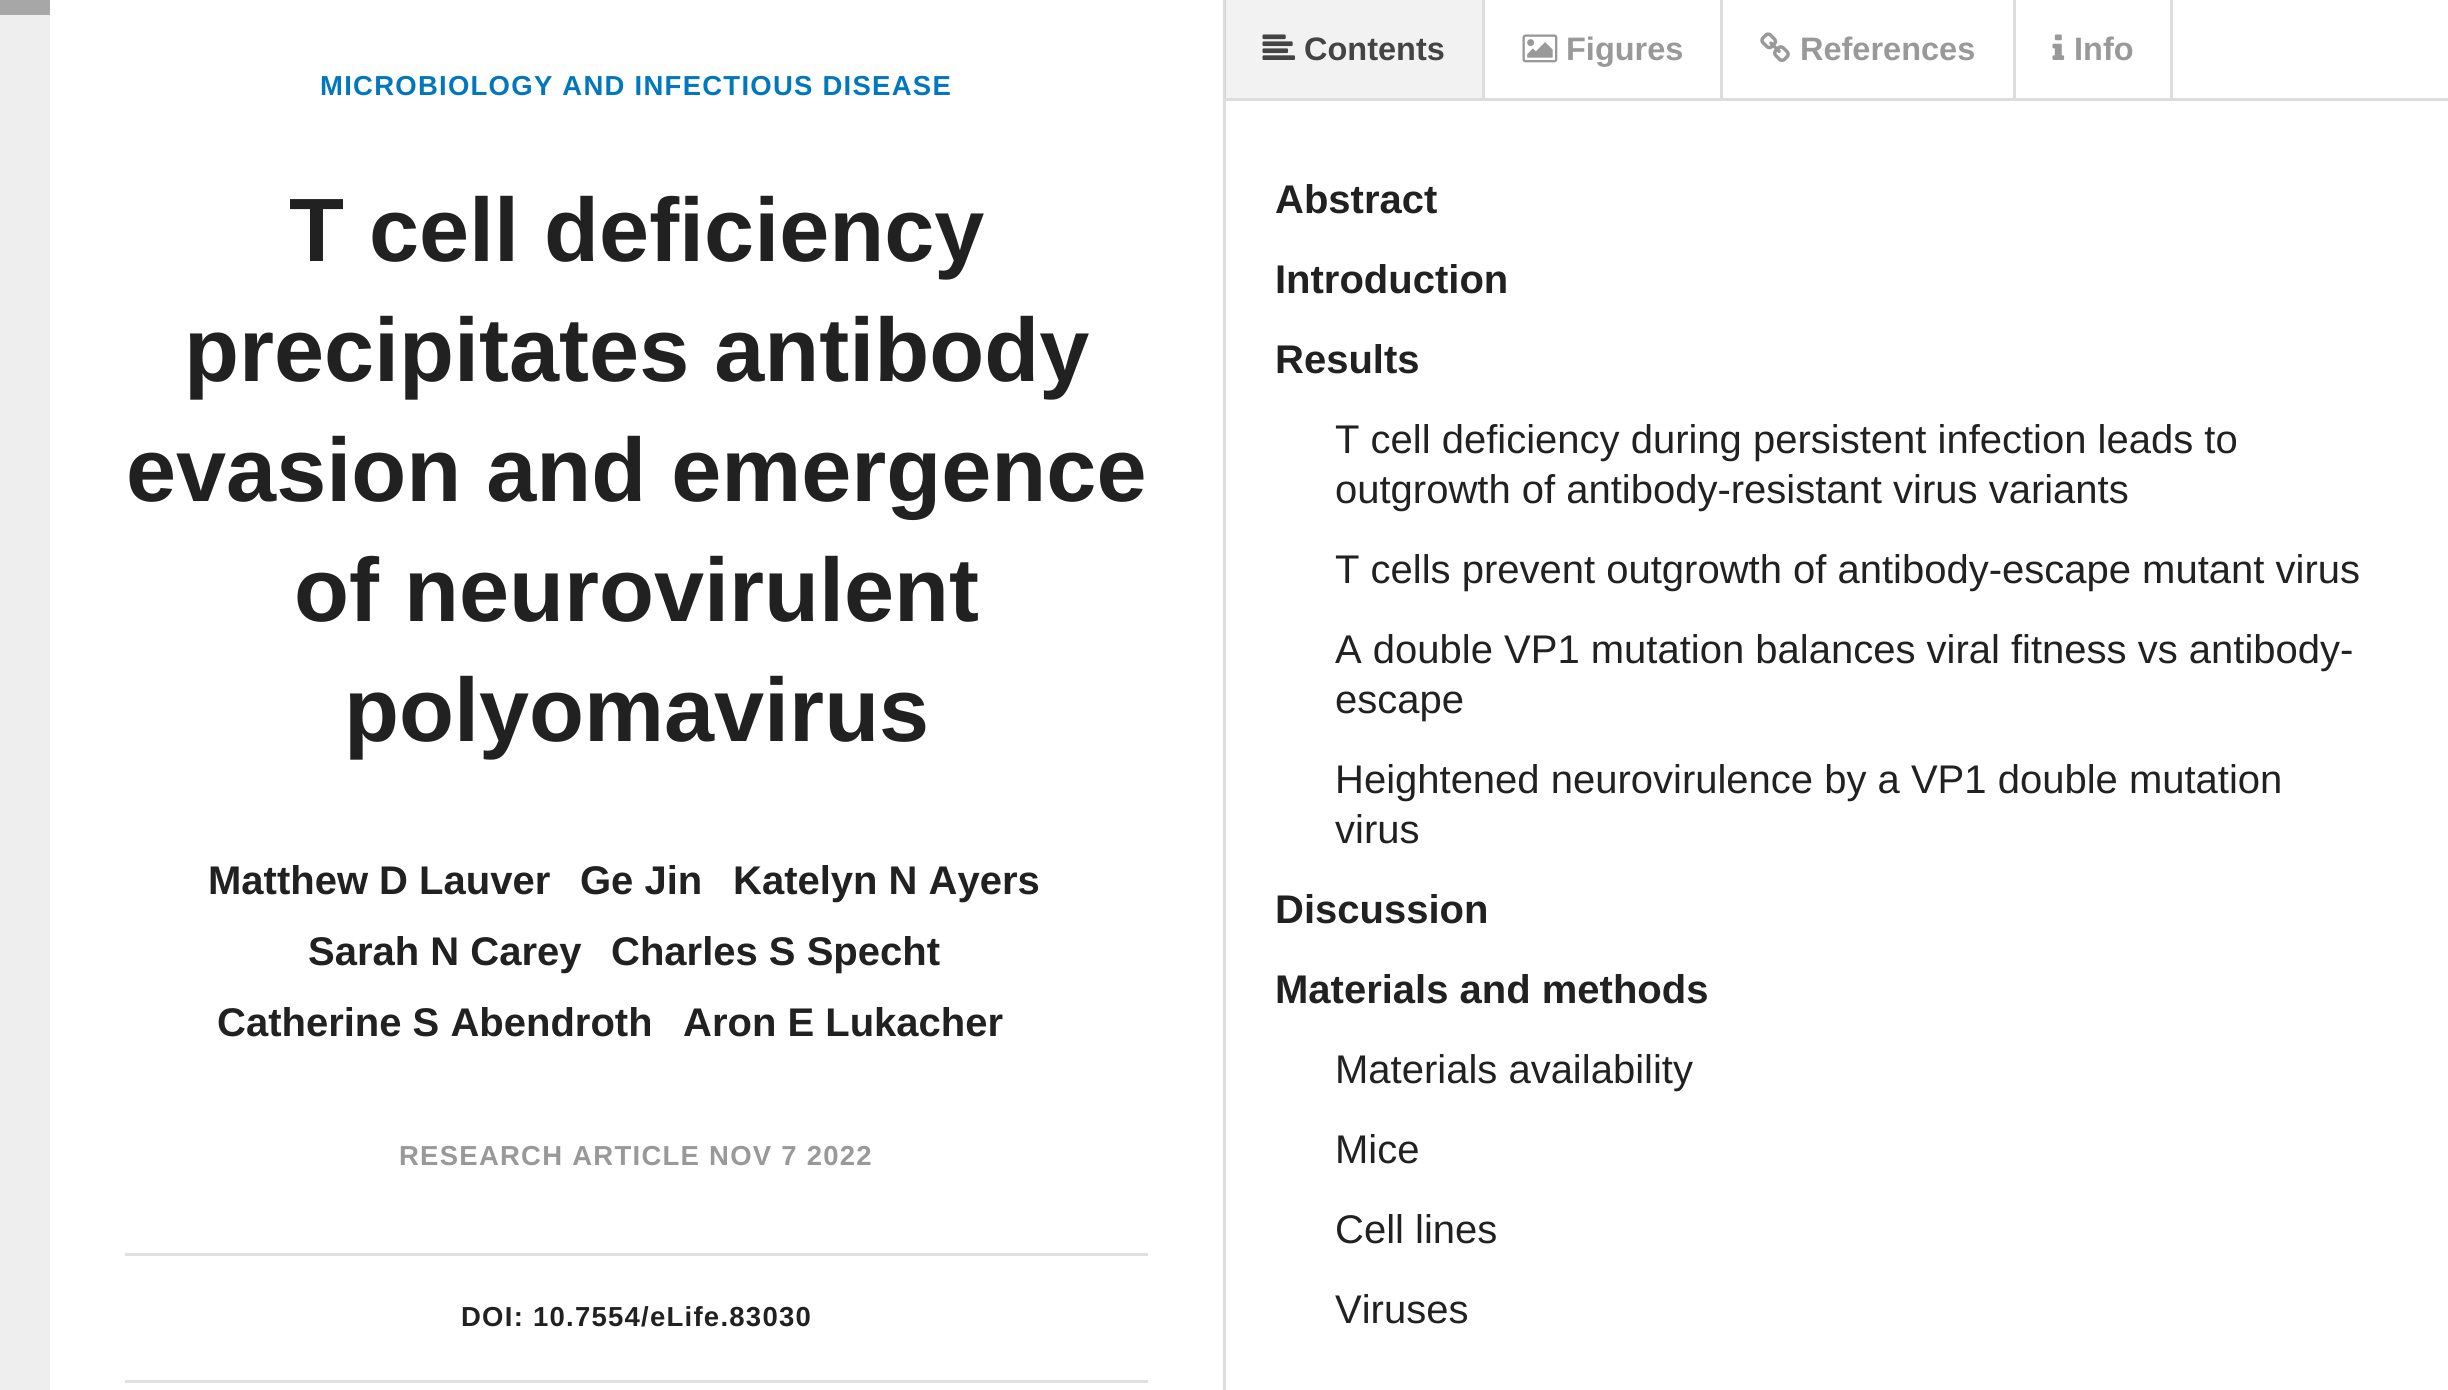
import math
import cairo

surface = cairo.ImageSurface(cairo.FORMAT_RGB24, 2448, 1390)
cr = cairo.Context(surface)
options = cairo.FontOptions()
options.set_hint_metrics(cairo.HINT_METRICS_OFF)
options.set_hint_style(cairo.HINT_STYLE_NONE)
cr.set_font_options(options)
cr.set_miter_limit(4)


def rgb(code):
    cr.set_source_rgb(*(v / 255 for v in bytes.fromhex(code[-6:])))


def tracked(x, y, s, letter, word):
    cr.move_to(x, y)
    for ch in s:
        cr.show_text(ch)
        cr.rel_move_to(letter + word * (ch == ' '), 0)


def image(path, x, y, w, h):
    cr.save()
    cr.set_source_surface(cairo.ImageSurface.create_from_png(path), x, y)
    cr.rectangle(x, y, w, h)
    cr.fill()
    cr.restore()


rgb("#ffffff")
cr.paint()
for x, y, w, h, color in [
    (1226, 0, 256, 98, "#f2f2f2"),
    (1223, 0, 3, 1390, "#dddddd"),
    (1225, 0, 1, 98, "#d2d2d2"),
    (0, 15, 50, 1375, "#eeeeee"),
    (0, 0, 50, 15, "#a7a7a7"),
    (125, 1253, 1023, 3, "#e0e0e0"),
    (125, 1380, 1023, 3, "#e0e0e0"),
    (1225, 98, 1223, 3, "#dddddd"),
]:
    rgb(color)
    cr.rectangle(x, y, w, h)
    cr.fill()
cr.save()
cr.rectangle(1225, 0, 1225, 98)
cr.clip()
cr.new_path()
cr.move_to(1485, 0)
cr.line_to(1485, 108)
cr.line_to(1482, 100)
cr.line_to(1482, 0)
cr.close_path()
cr.fill()
cr.restore()
image("img/1.png", 1262, 34, 33, 26)
cr.rectangle(1720, 0, 3, 98)
cr.fill()
image("img/2.png", 1522, 34, 36, 29)
cr.rectangle(2013, 0, 3, 98)
cr.fill()
image("img/3.png", 1760, 32, 30, 30)
cr.rectangle(2170, 0, 3, 98)
cr.fill()
image("img/4.png", 2052, 34, 13, 26)
cr.select_font_face("Liberation Sans", cairo.FONT_SLANT_NORMAL, cairo.FONT_WEIGHT_BOLD)
cr.set_font_size(27.5)
rgb("#0277bd")
tracked(320, 95, "MICROBIOLOGY AND INFECTIOUS DISEASE", 1.25, 0)
cr.set_font_size(90)
rgb("#212121")
for x, y, s in [
    (289, 261, "T cell deficiency"),
    (184, 381, "precipitates antibody"),
    (126, 501, "evasion and emergence"),
    (294, 621, "of neurovirulent"),
    (344, 741, "polyomavirus"),
]:
    cr.move_to(x, y)
    cr.show_text(s)
cr.set_font_size(40)
for x, y, s in [
    (208, 894, "Matthew D Lauver"),
    (580, 894, "Ge Jin"),
    (733, 894, "Katelyn N Ayers"),
    (308, 965, "Sarah N Carey"),
    (611, 965, "Charles S Specht"),
    (217, 1036, "Catherine S Abendroth"),
    (683, 1036, "Aron E Lukacher"),
]:
    cr.move_to(x, y)
    cr.show_text(s)
cr.set_font_size(27.5)
rgb("#999999")
tracked(399, 1165, "RESEARCH ARTICLE NOV 7 2022", 1.25, 0)
rgb("#212121")
tracked(461, 1326, "DOI: 10.7554/eLife.83030", 1.25, 0)
cr.set_font_size(32.5)
rgb("#444444")
cr.move_to(1304, 60)
cr.show_text("Contents")
rgb("#999999")
for x, y, s in [
    (1566, 60, "Figures"),
    (1800, 60, "References"),
    (2074, 60, "Info"),
]:
    cr.move_to(x, y)
    cr.show_text(s)
cr.set_font_size(40)
rgb("#212121")
for x, y, s in [
    (1275, 213, "Abstract"),
    (1275, 293, "Introduction"),
    (1275, 373, "Results"),
]:
    cr.move_to(x, y)
    cr.show_text(s)
cr.select_font_face("Liberation Sans")
for x, y, s in [
    (1335, 453, "T cell deficiency during persistent infection leads to"),
    (1335, 503, "outgrowth of antibody-resistant virus variants"),
    (1335, 583, "T cells prevent outgrowth of antibody-escape mutant virus"),
    (1335, 663, "A double VP1 mutation balances viral fitness vs antibody-"),
    (1335, 713, "escape"),
    (1335, 793, "Heightened neurovirulence by a VP1 double mutation"),
    (1335, 843, "virus"),
]:
    cr.move_to(x, y)
    cr.show_text(s)
cr.select_font_face("Liberation Sans", cairo.FONT_SLANT_NORMAL, cairo.FONT_WEIGHT_BOLD)
cr.move_to(1275, 923)
cr.show_text("Discussion")
cr.move_to(1275, 1003)
cr.show_text("Materials and methods")
cr.select_font_face("Liberation Sans")
for x, y, s in [
    (1335, 1083, "Materials availability"),
    (1335, 1163, "Mice"),
    (1335, 1243, "Cell lines"),
    (1335, 1323, "Viruses"),
]:
    cr.move_to(x, y)
    cr.show_text(s)
surface.write_to_png("page.png")
